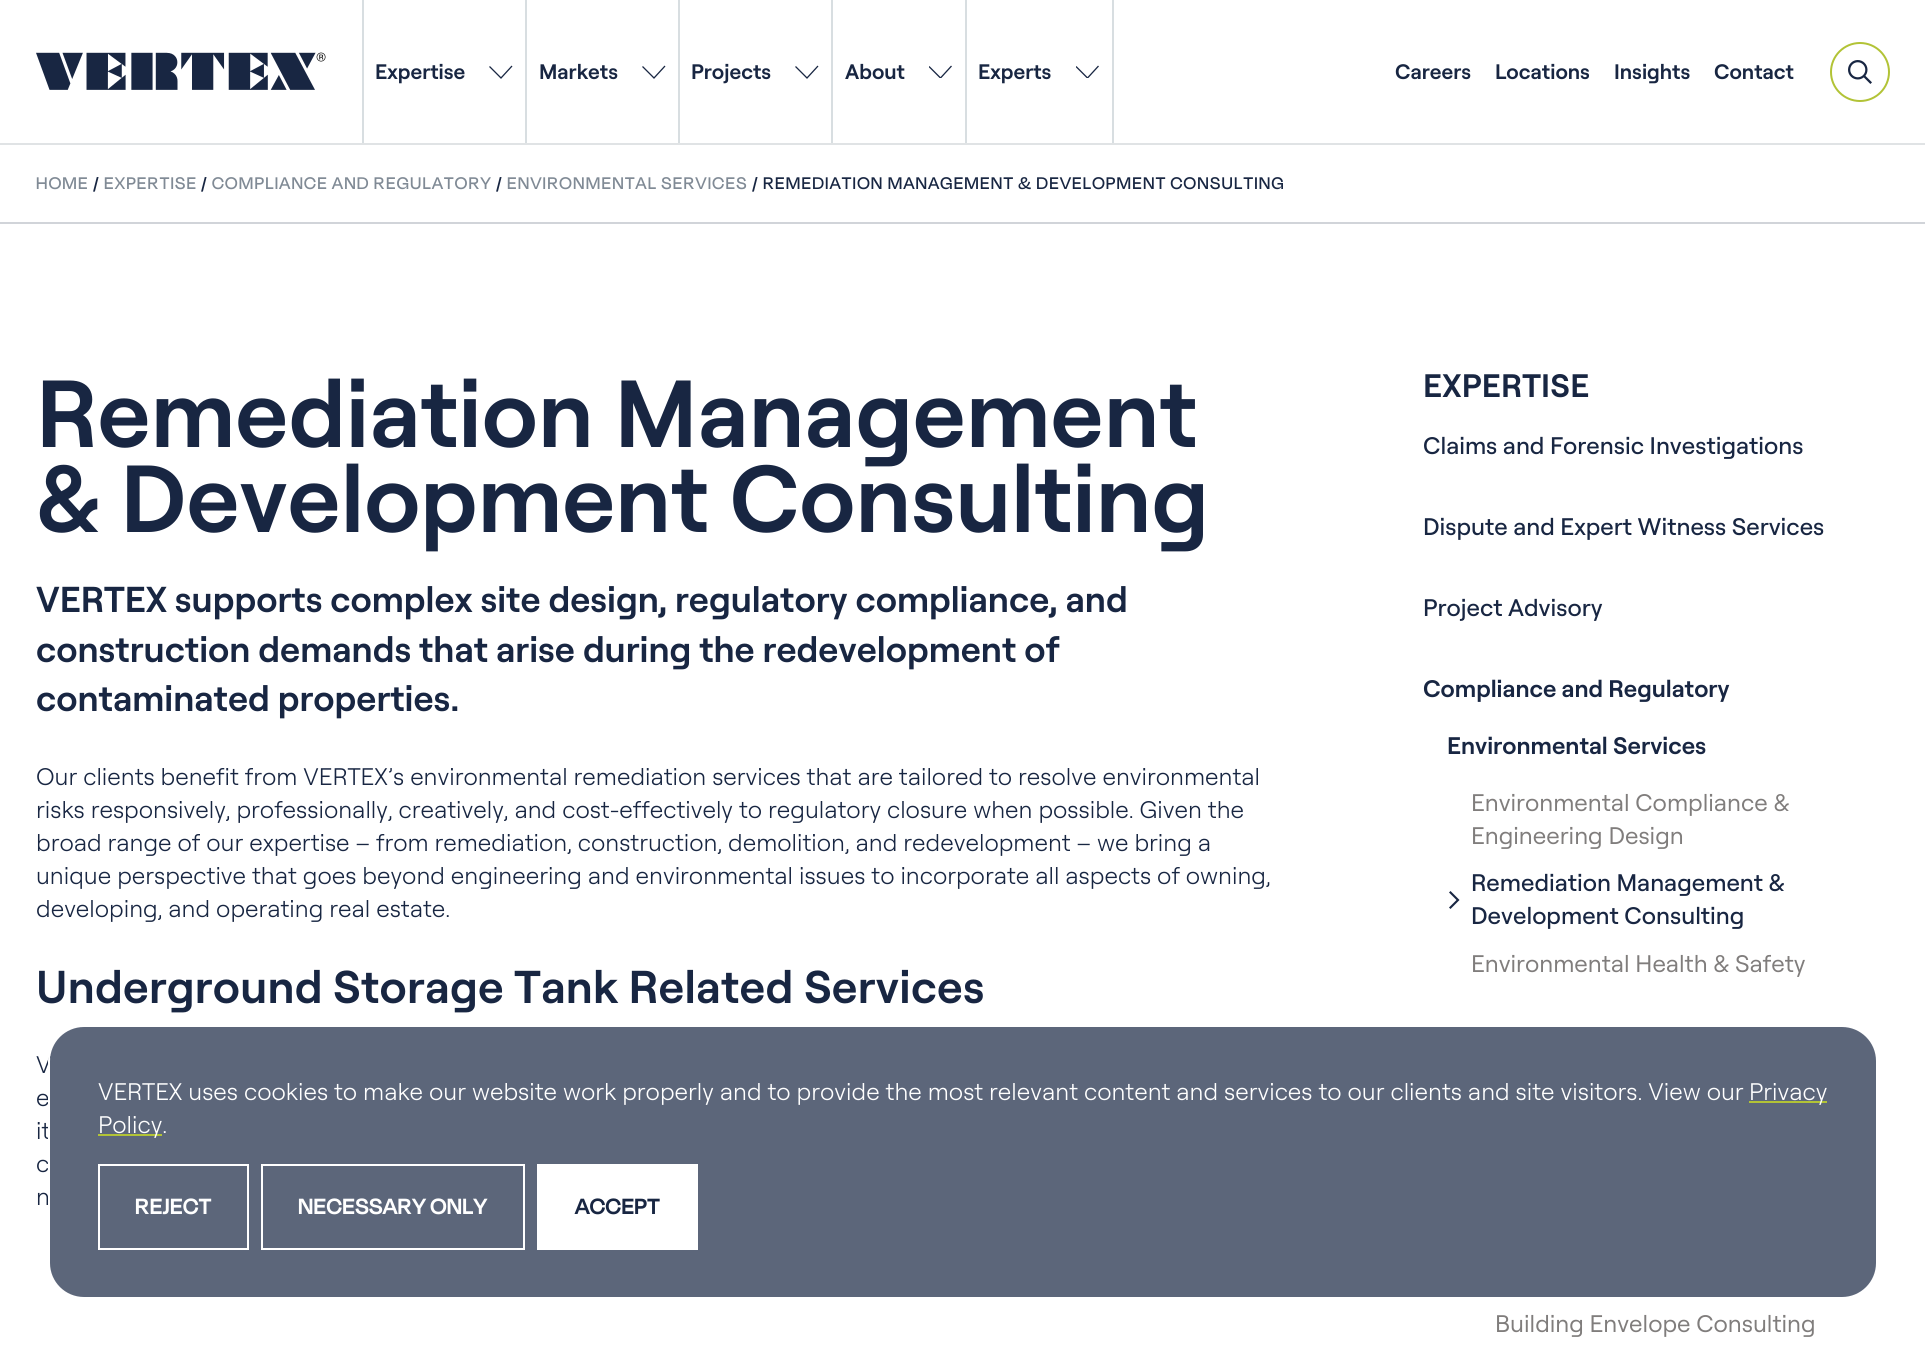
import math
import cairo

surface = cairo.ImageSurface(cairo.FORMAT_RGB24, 1925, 1347)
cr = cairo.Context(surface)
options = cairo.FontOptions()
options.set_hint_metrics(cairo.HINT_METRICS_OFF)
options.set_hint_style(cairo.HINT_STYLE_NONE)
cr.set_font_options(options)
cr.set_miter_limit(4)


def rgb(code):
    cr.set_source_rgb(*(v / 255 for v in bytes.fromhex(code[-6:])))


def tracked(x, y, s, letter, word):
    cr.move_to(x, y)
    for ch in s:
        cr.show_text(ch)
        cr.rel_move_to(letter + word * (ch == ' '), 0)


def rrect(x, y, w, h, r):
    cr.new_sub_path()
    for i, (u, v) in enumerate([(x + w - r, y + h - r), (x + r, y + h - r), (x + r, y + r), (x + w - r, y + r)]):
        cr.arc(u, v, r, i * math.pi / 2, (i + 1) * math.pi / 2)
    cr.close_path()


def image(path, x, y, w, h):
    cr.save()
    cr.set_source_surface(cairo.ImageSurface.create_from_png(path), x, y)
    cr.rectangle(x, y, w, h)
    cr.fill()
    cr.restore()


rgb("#ffffff")
cr.paint()
rgb("#e0e3e5")
cr.rectangle(0, 143, 1925, 2)
cr.fill()
image("img/1.png", 36, 52, 290, 38)
rgb("#d8dee1")
cr.rectangle(1112, 0, 2, 143)
cr.fill()
cr.rectangle(362, 0, 2, 143)
cr.fill()
cr.new_path()
cr.move_to(512, 66)
cr.line_to(501, 78)
cr.line_to(489.5, 66.5)
rgb("#182642")
cr.set_line_width(1.3)
cr.stroke()
rgb("#d8dee1")
cr.rectangle(525, 0, 2, 143)
cr.fill()
cr.new_path()
cr.move_to(665, 66)
cr.line_to(654, 78)
cr.line_to(642.5, 66.5)
rgb("#182642")
cr.stroke()
rgb("#d8dee1")
cr.rectangle(678, 0, 2, 143)
cr.fill()
cr.new_path()
cr.move_to(818, 66)
cr.line_to(807, 78)
cr.line_to(795.5, 66.5)
rgb("#182642")
cr.stroke()
rgb("#d8dee1")
cr.rectangle(831, 0, 2, 143)
cr.fill()
cr.save()
cr.rectangle(929, 65, 24, 13)
cr.clip()
cr.new_path()
cr.move_to(951.5, 66)
cr.line_to(940.5, 78)
cr.line_to(929, 66.5)
rgb("#182642")
cr.stroke()
cr.restore()
cr.rectangle(965, 0, 2, 143)
cr.fill()
cr.save()
cr.rectangle(1076, 65, 24, 13)
cr.clip()
cr.new_path()
cr.move_to(1098.5, 66)
cr.line_to(1087.5, 78)
cr.line_to(1076, 66.5)
rgb("#182642")
cr.stroke()
cr.restore()
image("img/2.png", 1848, 60, 24, 24)
cr.arc(1860, 72, 29, 0, 2 * math.pi)
rgb("#b2c336")
cr.set_line_width(2)
cr.stroke()
rgb("#d1d4d9")
cr.rectangle(0, 222, 1925, 2)
cr.fill()
rgb("#182642")
cr.new_path()
cr.move_to(1459.5, 900)
cr.line_to(1450.5, 909)
cr.line_to(1449, 907.5)
cr.line_to(1456.5, 900)
cr.line_to(1449, 892.5)
cr.line_to(1450.5, 891)
cr.close_path()
cr.fill()
cr.select_font_face("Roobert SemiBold")
cr.set_font_size(21)
for x, y, s in [
    (375, 79, "Expertise"),
    (539, 79, "Markets"),
    (691, 79, "Projects"),
    (845, 79, "About"),
    (978, 79, "Experts"),
    (1395, 79, "Careers"),
    (1495, 79, "Locations"),
    (1614, 79, "Insights"),
    (1714, 79, "Contact"),
]:
    cr.move_to(x, y)
    cr.show_text(s)
cr.select_font_face("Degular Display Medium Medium")
cr.set_font_size(19.5)
rgb("#808a95")
tracked(36, 189, "HOME", 1.2, 0)
rgb("#182642")
tracked(93, 189, "/", 1.2, 0)
rgb("#808a95")
tracked(104, 189, "EXPERTISE", 1.2, 0)
rgb("#182642")
tracked(201, 189, "/", 1.2, 0)
rgb("#808a95")
tracked(212, 189, "COMPLIANCE AND REGULATORY", 1.2, 0)
rgb("#182642")
tracked(496, 189, "/", 1.2, 0)
rgb("#808a95")
tracked(507, 189, "ENVIRONMENTAL SERVICES", 1.2, 0)
rgb("#182642")
tracked(752, 189, "/ REMEDIATION MANAGEMENT & DEVELOPMENT CONSULTING", 1.2, 0)
cr.select_font_face("Roobert SemiBold")
cr.set_font_size(95)
tracked(36, 447, "Remediation Management", 0.05, 0)
cr.move_to(36, 532)
cr.show_text("& Development Consulting")
cr.set_font_size(36)
for x, y, s in [
    (36, 612, "VERTEX supports complex site design, regulatory compliance, and"),
    (36, 662, "construction demands that arise during the redevelopment of"),
    (36, 711, "contaminated properties."),
]:
    cr.move_to(x, y)
    cr.show_text(s)
cr.select_font_face("Roobert Light")
cr.set_font_size(24)
for x, y, s in [
    (36, 785, "Our clients benefit from VERTEX’s environmental remediation services that are tailored to resolve environmental"),
    (36, 818, "risks responsively, professionally, creatively, and cost-effectively to regulatory closure when possible. Given the"),
    (36, 851, "broad range of our expertise – from remediation, construction, demolition, and redevelopment – we bring a"),
    (36, 884, "unique perspective that goes beyond engineering and environmental issues to incorporate all aspects of owning,"),
    (36, 917, "developing, and operating real estate."),
]:
    cr.move_to(x, y)
    cr.show_text(s)
cr.select_font_face("Roobert SemiBold")
cr.set_font_size(46)
tracked(36, 1003, "Underground Storage Tank Related Services", 0.25, 0)
cr.select_font_face("Roobert Light")
cr.set_font_size(24)
for x, y, s in [
    (36, 1073, "V"),
    (36, 1106, "e"),
    (36, 1139, "it"),
    (36, 1172, "c"),
    (36, 1205, "n"),
]:
    cr.move_to(x, y)
    cr.show_text(s)
cr.select_font_face("Roobert SemiBold")
cr.set_font_size(32.5)
tracked(1423, 397, "EXPERTISE", 0.25, 0)
cr.select_font_face("Roobert Medium")
cr.set_font_size(24)
for x, y, s in [
    (1423, 454, "Claims and Forensic Investigations"),
    (1423, 535, "Dispute and Expert Witness Services"),
    (1423, 616, "Project Advisory"),
]:
    cr.move_to(x, y)
    cr.show_text(s)
cr.select_font_face("Roobert SemiBold")
cr.move_to(1423, 697)
cr.show_text("Compliance and Regulatory")
cr.move_to(1447, 754)
cr.show_text("Environmental Services")
cr.select_font_face("Roobert")
rgb("#807d7c")
cr.move_to(1471, 811)
cr.show_text("Environmental Compliance &")
cr.move_to(1471, 844)
cr.show_text("Engineering Design")
cr.select_font_face("Roobert Medium")
rgb("#182642")
cr.move_to(1471, 891)
cr.show_text("Remediation Management &")
cr.move_to(1471, 924)
cr.show_text("Development Consulting")
cr.select_font_face("Roobert")
rgb("#807d7c")
cr.move_to(1471, 972)
cr.show_text("Environmental Health & Safety")
cr.move_to(1495, 1332)
cr.show_text("Building Envelope Consulting")
cr.set_source_rgba(0.094, 0.149, 0.259, 0.7)
rrect(49, 1026, 1828, 272, 35)
cr.fill_preserve()
rgb("#ffffff")
cr.stroke()
cr.select_font_face("Roobert Light")
cr.move_to(98, 1100)
cr.show_text("VERTEX uses cookies to make our website work properly and to provide the most relevant content and services to our clients and site visitors. View our")
rgb("#b2c336")
cr.rectangle(1749, 1101, 78, 2)
cr.fill()
rgb("#ffffff")
cr.move_to(1749, 1100)
cr.show_text("Privacy")
rgb("#b2c336")
cr.rectangle(98, 1134, 64, 2)
cr.fill()
rgb("#ffffff")
cr.move_to(98, 1133)
cr.show_text("Policy.")
cr.rectangle(99, 1165, 149, 84)
cr.stroke()
cr.select_font_face("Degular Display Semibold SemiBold")
cr.set_font_size(25.5)
tracked(135, 1214, "REJECT", 0.25, 0)
cr.rectangle(262, 1165, 262, 84)
cr.stroke()
tracked(298, 1214, "NECESSARY ONLY", 0.25, 0)
cr.rectangle(537, 1164, 161, 86)
cr.fill()
rgb("#182642")
tracked(575, 1214, "ACCEPT", 0.25, 0)
surface.write_to_png("page.png")
